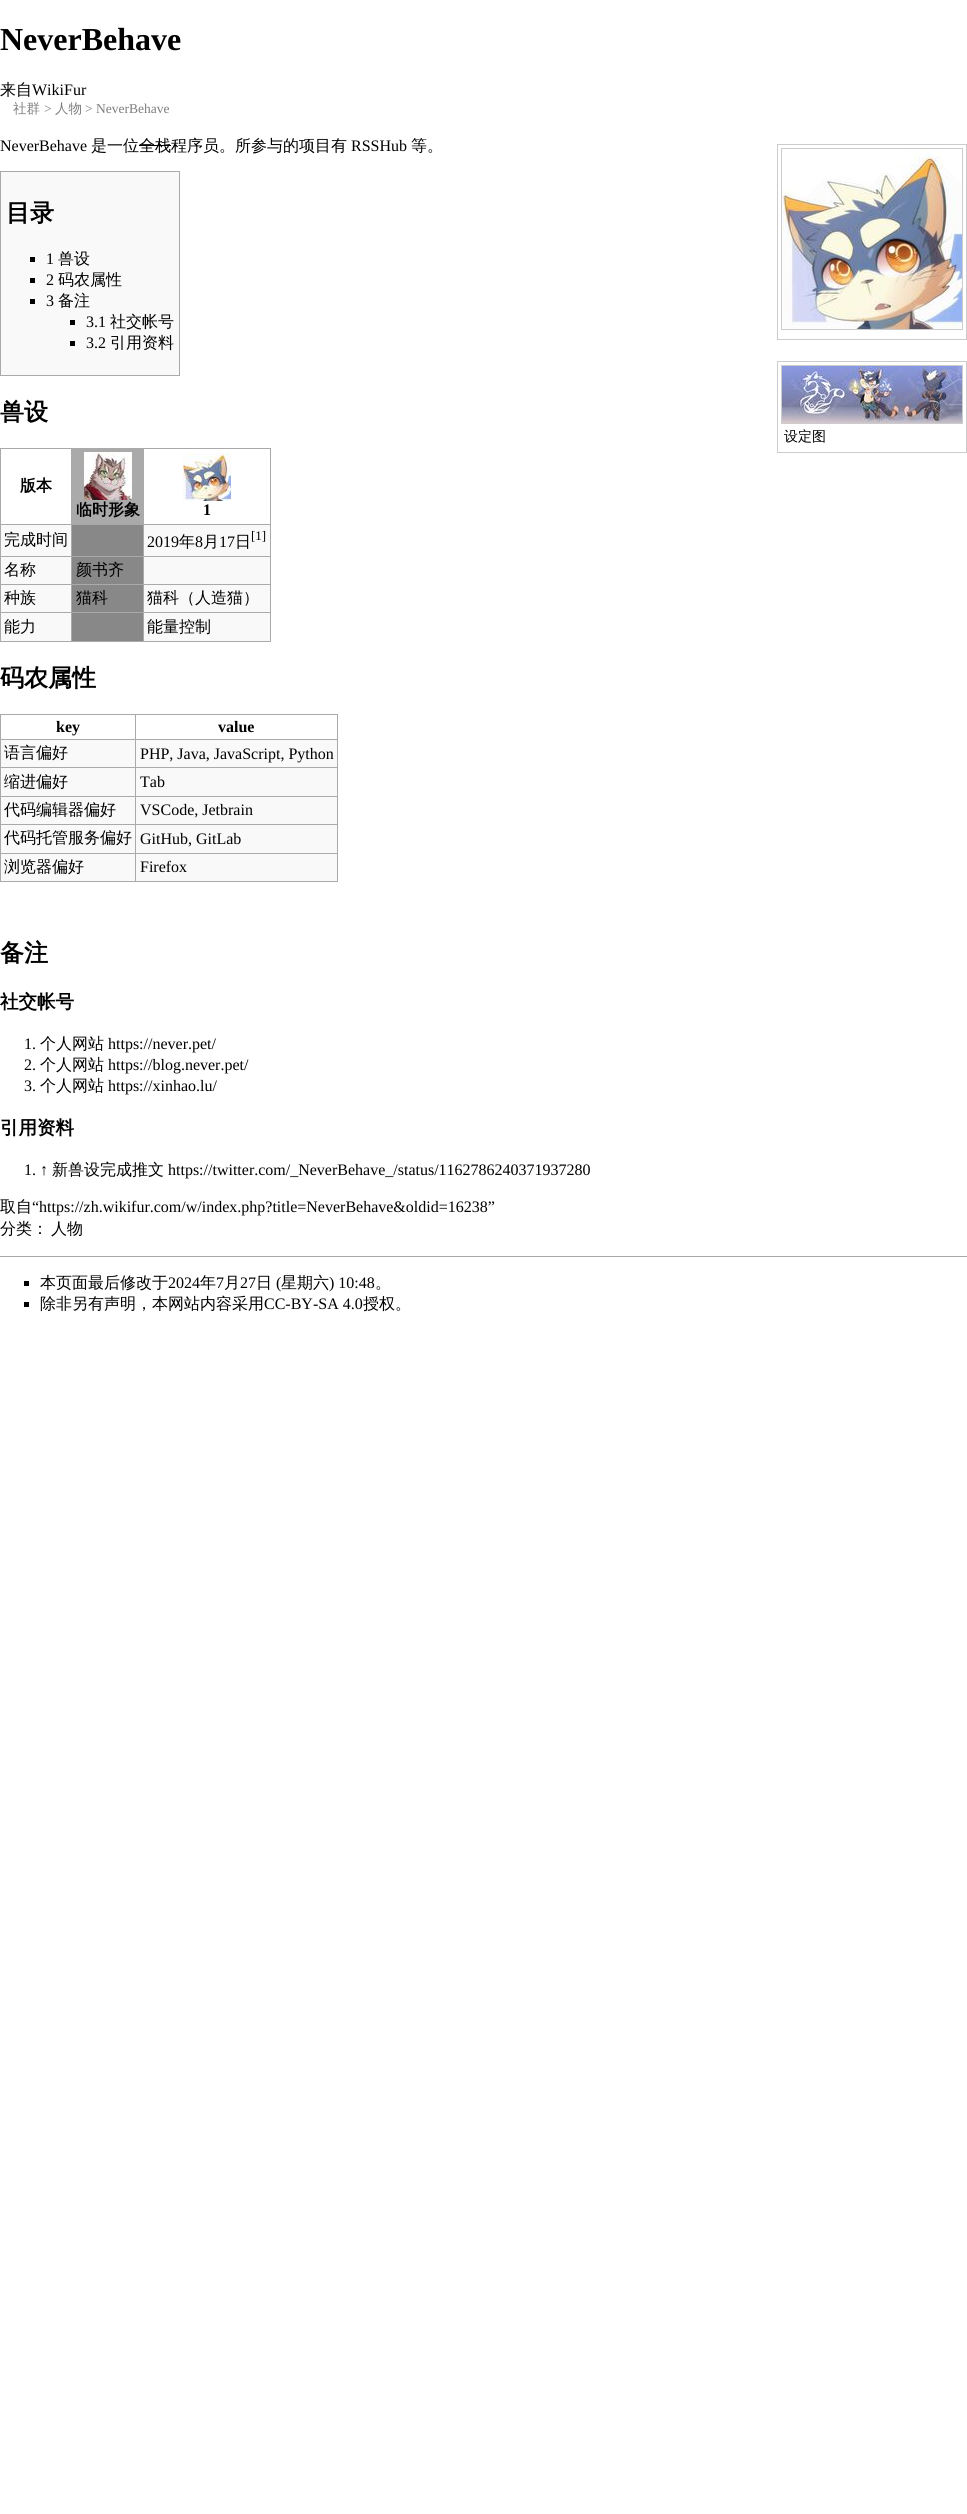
import math
import cairo

surface = cairo.ImageSurface(cairo.FORMAT_RGB24, 967, 2514)
cr = cairo.Context(surface)
options = cairo.FontOptions()
options.set_hint_metrics(cairo.HINT_METRICS_OFF)
options.set_hint_style(cairo.HINT_STYLE_NONE)
cr.set_font_options(options)
cr.set_miter_limit(4)


def rgb(code):
    cr.set_source_rgb(*(v / 255 for v in bytes.fromhex(code[-6:])))


def image(path, x, y, w, h):
    cr.save()
    cr.set_source_surface(cairo.ImageSurface.create_from_png(path), x, y)
    cr.rectangle(x, y, w, h)
    cr.fill()
    cr.restore()


rgb("#ffffff")
cr.paint()
rgb("#000000")
cr.rectangle(139, 145, 32, 1)
cr.fill()
cr.rectangle(777.5, 144.5, 189, 195)
rgb("#cccccc")
cr.set_line_width(1)
cr.stroke()
cr.rectangle(781.5, 148.5, 181, 181)
cr.stroke()
image("img/1.png", 782, 149, 180, 180)
rgb("#f9f9f9")
cr.rectangle(0.5, 171.5, 179, 204)
cr.fill_preserve()
rgb("#aaaaaa")
cr.stroke()
for x, y, w, h, color in [
    (30, 257, 5, 5, "#000000"),
    (30, 278, 5, 5, "#000000"),
    (30, 299, 5, 5, "#000000"),
    (70, 320, 5, 5, "#000000"),
    (70, 341, 5, 5, "#000000"),
]:
    rgb(color)
    cr.rectangle(x, y, w, h)
    cr.fill()
cr.rectangle(777.5, 361.5, 189, 91)
rgb("#cccccc")
cr.stroke()
cr.rectangle(781.5, 365.5, 181, 58)
cr.stroke()
image("img/2.png", 782, 366, 180, 57)
for x, y, w, h, color in [
    (1, 525, 269, 116, "#f9f9f9"),
    (0, 448, 271, 1, "#aaaaaa"),
    (270, 448, 1, 194, "#aaaaaa"),
    (0, 641, 271, 1, "#aaaaaa"),
    (0, 448, 1, 194, "#aaaaaa"),
    (72, 449, 71, 75, "#aaaaaa"),
    (143, 524, 128, 1, "#aaaaaa"),
    (71, 556, 73, 1, "#aaaaaa"),
    (143, 584, 128, 1, "#aaaaaa"),
    (143, 612, 128, 1, "#aaaaaa"),
    (143, 612, 1, 30, "#aaaaaa"),
    (71, 612, 73, 1, "#aaaaaa"),
    (143, 584, 1, 29, "#aaaaaa"),
    (71, 584, 73, 1, "#aaaaaa"),
    (143, 556, 1, 29, "#aaaaaa"),
    (143, 556, 128, 1, "#aaaaaa"),
    (143, 524, 1, 33, "#aaaaaa"),
    (71, 524, 73, 1, "#aaaaaa"),
    (71, 612, 1, 30, "#aaaaaa"),
    (0, 612, 72, 1, "#aaaaaa"),
    (71, 584, 1, 29, "#aaaaaa"),
    (0, 584, 72, 1, "#aaaaaa"),
    (71, 556, 1, 29, "#aaaaaa"),
    (0, 556, 72, 1, "#aaaaaa"),
    (71, 524, 1, 33, "#aaaaaa"),
    (0, 524, 72, 1, "#aaaaaa"),
    (71, 448, 1, 77, "#aaaaaa"),
]:
    rgb(color)
    cr.rectangle(x, y, w, h)
    cr.fill()
image("img/3.png", 84, 452, 48, 48)
cr.rectangle(143, 448, 1, 77)
cr.fill()
image("img/4.png", 183, 453, 48, 48)
for x, y, w, h, color in [
    (72, 525, 71, 31, "#888888"),
    (72, 557, 71, 27, "#888888"),
    (72, 585, 71, 27, "#888888"),
    (72, 613, 71, 28, "#888888"),
    (1, 740, 336, 141, "#f9f9f9"),
    (0, 714, 338, 1, "#aaaaaa"),
    (337, 714, 1, 168, "#aaaaaa"),
    (0, 881, 338, 1, "#aaaaaa"),
    (0, 714, 1, 168, "#aaaaaa"),
    (135, 739, 203, 1, "#aaaaaa"),
    (135, 767, 203, 1, "#aaaaaa"),
    (135, 796, 203, 1, "#aaaaaa"),
    (135, 824, 203, 1, "#aaaaaa"),
    (135, 853, 203, 1, "#aaaaaa"),
    (135, 853, 1, 29, "#aaaaaa"),
    (0, 853, 136, 1, "#aaaaaa"),
    (135, 824, 1, 30, "#aaaaaa"),
    (0, 824, 136, 1, "#aaaaaa"),
    (135, 796, 1, 29, "#aaaaaa"),
    (0, 796, 136, 1, "#aaaaaa"),
    (135, 767, 1, 30, "#aaaaaa"),
    (0, 767, 136, 1, "#aaaaaa"),
    (135, 739, 1, 29, "#aaaaaa"),
    (0, 739, 136, 1, "#aaaaaa"),
    (135, 714, 1, 26, "#aaaaaa"),
    (0, 1256, 967, 1, "#aaaaaa"),
    (24, 1281, 5, 5, "#000000"),
    (24, 1302, 5, 5, "#000000"),
]:
    rgb(color)
    cr.rectangle(x, y, w, h)
    cr.fill()
cr.select_font_face("Liberation Serif", cairo.FONT_SLANT_NORMAL, cairo.FONT_WEIGHT_BOLD)
cr.set_font_size(32)
cr.move_to(0, 50)
cr.show_text("NeverBehave")
cr.select_font_face("WenQuanYi Zen Hei Medium")
cr.set_font_size(16)
cr.move_to(0, 95)
cr.show_text("来自")
cr.select_font_face("Liberation Serif")
cr.move_to(32, 95)
cr.show_text("WikiFur")
cr.select_font_face("WenQuanYi Zen Hei Medium")
cr.set_font_size(13.5)
rgb("#7d7d7d")
cr.move_to(13, 113)
cr.show_text("社群")
cr.select_font_face("Liberation Serif")
cr.move_to(44, 113)
cr.show_text(">")
cr.select_font_face("WenQuanYi Zen Hei Medium")
cr.move_to(55, 113)
cr.show_text("人物")
cr.select_font_face("Liberation Serif")
cr.move_to(85, 113)
cr.show_text("> NeverBehave")
cr.set_font_size(16)
rgb("#000000")
cr.move_to(0, 151)
cr.show_text("NeverBehave")
cr.select_font_face("WenQuanYi Zen Hei Medium")
cr.move_to(91, 151)
cr.show_text("是一位全栈程序员。所参与的项目有")
cr.select_font_face("Liberation Serif")
cr.move_to(351, 151)
cr.show_text("RSSHub")
cr.select_font_face("WenQuanYi Zen Hei Medium")
cr.move_to(411, 151)
cr.show_text("等。")
cr.select_font_face("WenQuanYi Zen Hei", cairo.FONT_SLANT_NORMAL, cairo.FONT_WEIGHT_BOLD)
cr.set_font_size(24)
cr.move_to(6, 221)
cr.show_text("目录")
cr.select_font_face("Liberation Serif")
cr.set_font_size(16)
cr.move_to(46, 264)
cr.show_text("1")
cr.select_font_face("WenQuanYi Zen Hei Medium")
cr.move_to(58, 264)
cr.show_text("兽设")
cr.select_font_face("Liberation Serif")
cr.move_to(46, 285)
cr.show_text("2")
cr.select_font_face("WenQuanYi Zen Hei Medium")
cr.move_to(58, 285)
cr.show_text("码农属性")
cr.select_font_face("Liberation Serif")
cr.move_to(46, 306)
cr.show_text("3")
cr.select_font_face("WenQuanYi Zen Hei Medium")
cr.move_to(58, 306)
cr.show_text("备注")
cr.select_font_face("Liberation Serif")
cr.move_to(86, 327)
cr.show_text("3.1")
cr.select_font_face("WenQuanYi Zen Hei Medium")
cr.move_to(110, 327)
cr.show_text("社交帐号")
cr.select_font_face("Liberation Serif")
cr.move_to(86, 348)
cr.show_text("3.2")
cr.select_font_face("WenQuanYi Zen Hei Medium")
cr.move_to(110, 348)
cr.show_text("引用资料")
cr.select_font_face("WenQuanYi Zen Hei", cairo.FONT_SLANT_NORMAL, cairo.FONT_WEIGHT_BOLD)
cr.set_font_size(24)
cr.move_to(0, 420)
cr.show_text("兽设")
cr.select_font_face("WenQuanYi Zen Hei Medium")
cr.set_font_size(14)
cr.move_to(784, 441)
cr.show_text("设定图")
cr.select_font_face("WenQuanYi Zen Hei", cairo.FONT_SLANT_NORMAL, cairo.FONT_WEIGHT_BOLD)
cr.set_font_size(16)
cr.move_to(20, 491)
cr.show_text("版本")
cr.move_to(76, 515)
cr.show_text("临时形象")
cr.select_font_face("Liberation Serif", cairo.FONT_SLANT_NORMAL, cairo.FONT_WEIGHT_BOLD)
cr.move_to(203, 515)
cr.show_text("1")
cr.select_font_face("WenQuanYi Zen Hei Medium")
cr.move_to(4, 545)
cr.show_text("完成时间")
cr.select_font_face("Liberation Serif")
cr.move_to(147, 547)
cr.show_text("2019")
cr.select_font_face("WenQuanYi Zen Hei Medium")
cr.move_to(179, 547)
cr.show_text("年")
cr.select_font_face("Liberation Serif")
cr.move_to(195, 547)
cr.show_text("8")
cr.select_font_face("WenQuanYi Zen Hei Medium")
cr.move_to(203, 547)
cr.show_text("月")
cr.select_font_face("Liberation Serif")
cr.move_to(219, 547)
cr.show_text("17")
cr.select_font_face("WenQuanYi Zen Hei Medium")
cr.move_to(235, 547)
cr.show_text("日")
cr.select_font_face("Liberation Serif")
cr.set_font_size(13)
cr.move_to(251, 540)
cr.show_text("[1]")
cr.select_font_face("WenQuanYi Zen Hei Medium")
cr.set_font_size(16)
for x, y, s in [
    (4, 575, "名称"),
    (76, 575, "颜书齐"),
    (4, 603, "种族"),
    (76, 603, "猫科"),
    (147, 603, "猫科（人造猫）"),
    (4, 632, "能力"),
    (147, 632, "能量控制"),
]:
    cr.move_to(x, y)
    cr.show_text(s)
cr.select_font_face("WenQuanYi Zen Hei", cairo.FONT_SLANT_NORMAL, cairo.FONT_WEIGHT_BOLD)
cr.set_font_size(24)
cr.move_to(0, 686)
cr.show_text("码农属性")
cr.select_font_face("Liberation Serif", cairo.FONT_SLANT_NORMAL, cairo.FONT_WEIGHT_BOLD)
cr.set_font_size(16)
cr.move_to(56, 732)
cr.show_text("key")
cr.move_to(218, 732)
cr.show_text("value")
cr.select_font_face("WenQuanYi Zen Hei Medium")
cr.move_to(4, 758)
cr.show_text("语言偏好")
cr.select_font_face("Liberation Serif")
cr.move_to(140, 759)
cr.show_text("PHP, Java, JavaScript, Python")
cr.select_font_face("WenQuanYi Zen Hei Medium")
cr.move_to(4, 787)
cr.show_text("缩进偏好")
cr.select_font_face("Liberation Serif")
cr.move_to(140, 787)
cr.show_text("Tab")
cr.select_font_face("WenQuanYi Zen Hei Medium")
cr.move_to(4, 815)
cr.show_text("代码编辑器偏好")
cr.select_font_face("Liberation Serif")
cr.move_to(140, 815)
cr.show_text("VSCode, Jetbrain")
cr.select_font_face("WenQuanYi Zen Hei Medium")
cr.move_to(4, 843)
cr.show_text("代码托管服务偏好")
cr.select_font_face("Liberation Serif")
cr.move_to(140, 844)
cr.show_text("GitHub, GitLab")
cr.select_font_face("WenQuanYi Zen Hei Medium")
cr.move_to(4, 872)
cr.show_text("浏览器偏好")
cr.select_font_face("Liberation Serif")
cr.move_to(140, 872)
cr.show_text("Firefox")
cr.select_font_face("WenQuanYi Zen Hei", cairo.FONT_SLANT_NORMAL, cairo.FONT_WEIGHT_BOLD)
cr.set_font_size(24)
cr.move_to(0, 961)
cr.show_text("备注")
cr.set_font_size(18.5)
cr.move_to(0, 1008)
cr.show_text("社交帐号")
cr.select_font_face("Liberation Serif")
cr.set_font_size(16)
cr.move_to(24, 1049)
cr.show_text("1.")
cr.select_font_face("WenQuanYi Zen Hei Medium")
cr.move_to(40, 1049)
cr.show_text("个人网站")
cr.select_font_face("Liberation Serif")
cr.move_to(108, 1049)
cr.show_text("https://never.pet/")
cr.move_to(24, 1070)
cr.show_text("2.")
cr.select_font_face("WenQuanYi Zen Hei Medium")
cr.move_to(40, 1070)
cr.show_text("个人网站")
cr.select_font_face("Liberation Serif")
cr.move_to(108, 1070)
cr.show_text("https://blog.never.pet/")
cr.move_to(24, 1091)
cr.show_text("3.")
cr.select_font_face("WenQuanYi Zen Hei Medium")
cr.move_to(40, 1091)
cr.show_text("个人网站")
cr.select_font_face("Liberation Serif")
cr.move_to(108, 1091)
cr.show_text("https://xinhao.lu/")
cr.select_font_face("WenQuanYi Zen Hei", cairo.FONT_SLANT_NORMAL, cairo.FONT_WEIGHT_BOLD)
cr.set_font_size(18.5)
cr.move_to(0, 1134)
cr.show_text("引用资料")
cr.select_font_face("Liberation Serif")
cr.set_font_size(16)
cr.move_to(24, 1175)
cr.show_text("1. ↑")
cr.select_font_face("WenQuanYi Zen Hei Medium")
cr.move_to(52, 1175)
cr.show_text("新兽设完成推文")
cr.select_font_face("Liberation Serif")
cr.move_to(168, 1175)
cr.show_text("https://twitter.com/_NeverBehave_/status/1162786240371937280")
cr.select_font_face("WenQuanYi Zen Hei Medium")
cr.move_to(0, 1212)
cr.show_text("取自")
cr.select_font_face("Liberation Serif")
cr.move_to(32, 1212)
cr.show_text("“https://zh.wikifur.com/w/index.php?title=NeverBehave&oldid=16238”")
cr.select_font_face("WenQuanYi Zen Hei Medium")
for x, y, s in [
    (0, 1234, "分类："),
    (51, 1234, "人物"),
    (40, 1288, "本页面最后修改于"),
]:
    cr.move_to(x, y)
    cr.show_text(s)
cr.select_font_face("Liberation Serif")
cr.move_to(168, 1288)
cr.show_text("2024")
cr.select_font_face("WenQuanYi Zen Hei Medium")
cr.move_to(200, 1288)
cr.show_text("年")
cr.select_font_face("Liberation Serif")
cr.move_to(216, 1288)
cr.show_text("7")
cr.select_font_face("WenQuanYi Zen Hei Medium")
cr.move_to(224, 1288)
cr.show_text("月")
cr.select_font_face("Liberation Serif")
cr.move_to(240, 1288)
cr.show_text("27")
cr.select_font_face("WenQuanYi Zen Hei Medium")
cr.move_to(256, 1288)
cr.show_text("日")
cr.select_font_face("Liberation Serif")
cr.move_to(276, 1288)
cr.show_text("(")
cr.select_font_face("WenQuanYi Zen Hei Medium")
cr.move_to(281, 1288)
cr.show_text("星期六")
cr.select_font_face("Liberation Serif")
cr.move_to(329, 1288)
cr.show_text(") 10:48")
cr.select_font_face("WenQuanYi Zen Hei Medium")
cr.move_to(375, 1288)
cr.show_text("。")
cr.move_to(40, 1309)
cr.show_text("除非另有声明，本网站内容采用")
cr.select_font_face("Liberation Serif")
cr.move_to(264, 1309)
cr.show_text("CC-BY-SA 4.0")
cr.select_font_face("WenQuanYi Zen Hei Medium")
cr.move_to(363, 1309)
cr.show_text("授权。")
surface.write_to_png("page.png")
